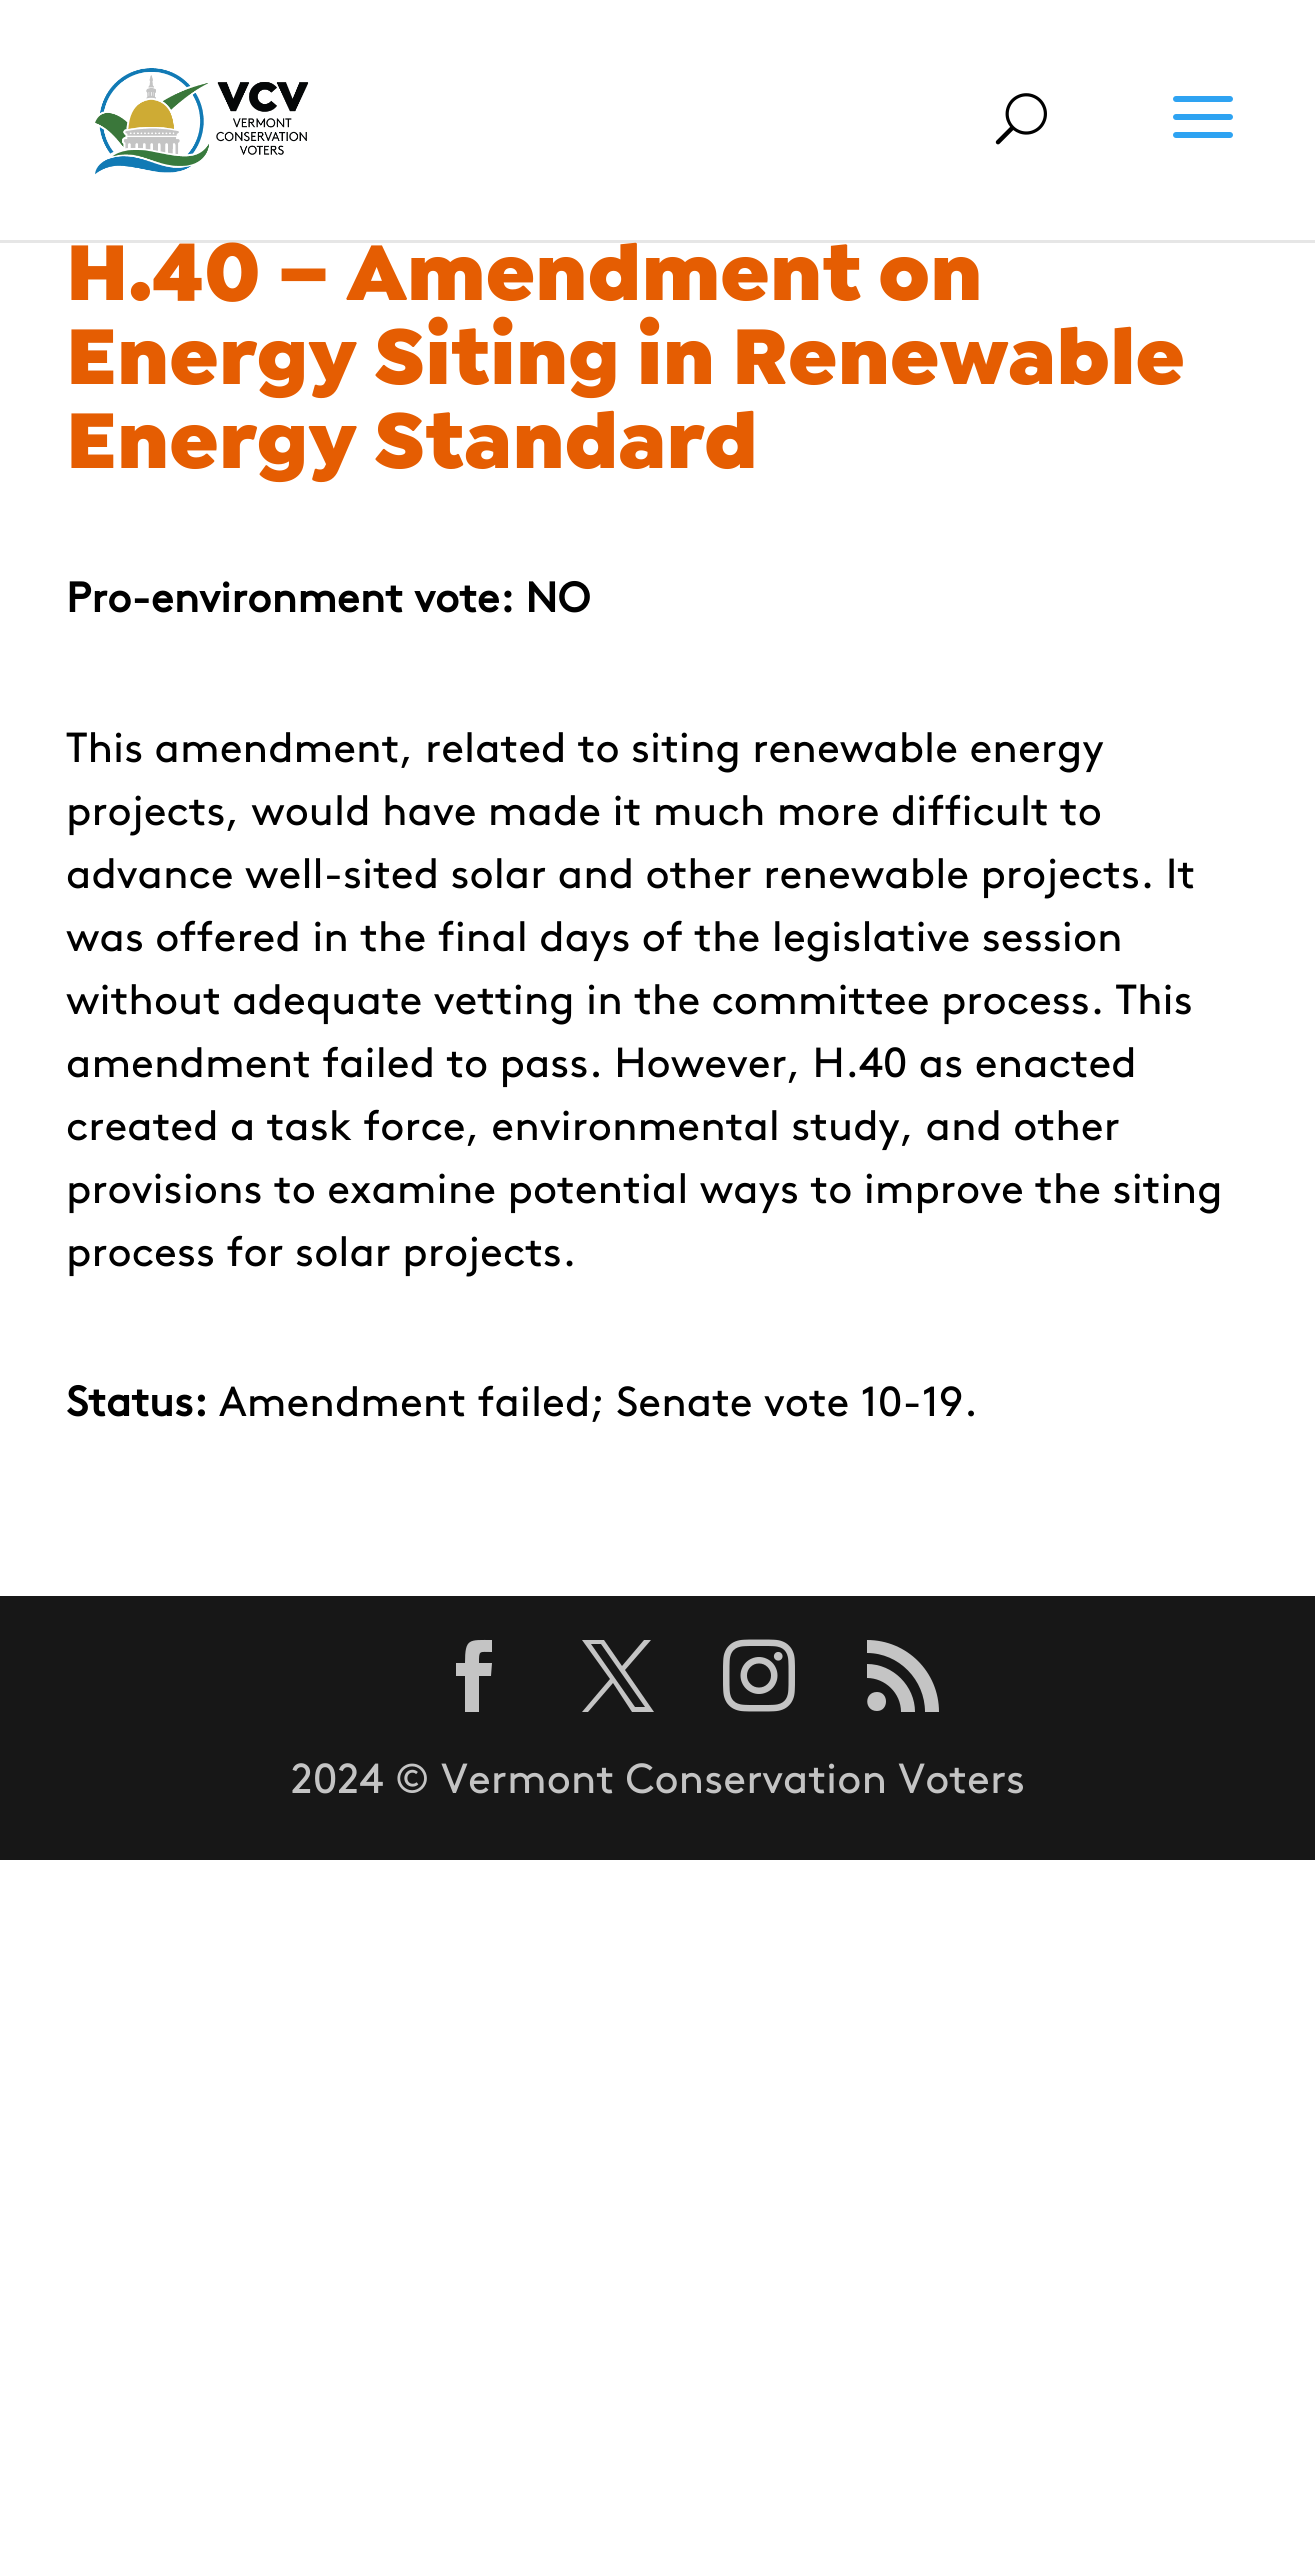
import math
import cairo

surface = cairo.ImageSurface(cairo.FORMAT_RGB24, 1315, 2569)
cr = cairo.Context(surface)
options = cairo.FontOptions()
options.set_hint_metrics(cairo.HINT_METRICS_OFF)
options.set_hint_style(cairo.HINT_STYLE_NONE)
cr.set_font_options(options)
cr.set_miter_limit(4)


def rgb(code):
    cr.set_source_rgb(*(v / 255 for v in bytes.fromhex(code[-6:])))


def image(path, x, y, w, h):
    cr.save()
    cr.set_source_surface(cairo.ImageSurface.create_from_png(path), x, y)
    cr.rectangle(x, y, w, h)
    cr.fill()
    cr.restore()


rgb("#ffffff")
cr.paint()
cr.set_source_rgba(0, 0, 0, 0.1)
cr.rectangle(0, 240, 1315, 3)
cr.fill()
image("img/1.png", 95, 68, 214, 107)
image("img/2.png", 995, 93, 52, 52)
image("img/3.png", 1173, 96, 60, 42)
rgb("#171717")
cr.rectangle(0, 1596, 1315, 264)
cr.fill()
rgb("#c4c4c4")
cr.new_path()
cr.move_to(465, 1712)
cr.line_to(479, 1712)
cr.line_to(479, 1676)
cr.line_to(491, 1676)
cr.line_to(492, 1663)
cr.line_to(479, 1663)
cr.curve_to(479, 1650, 479, 1652, 492, 1652)
cr.line_to(492, 1640)
cr.curve_to(469, 1640, 465, 1638, 465, 1663)
cr.line_to(456, 1663)
cr.line_to(456, 1676)
cr.line_to(465, 1676)
cr.close_path()
cr.fill()
cr.new_path()
cr.move_to(582, 1640)
cr.line_to(610, 1679)
cr.line_to(582, 1712)
cr.line_to(588, 1712)
cr.line_to(613, 1683)
cr.line_to(632, 1712)
cr.line_to(654, 1712)
cr.line_to(625, 1670)
cr.line_to(651, 1640)
cr.line_to(644, 1640)
cr.line_to(622, 1666)
cr.line_to(604, 1640)
cr.close_path()
cr.move_to(591, 1644)
cr.line_to(601, 1644)
cr.line_to(645, 1707)
cr.line_to(635, 1707)
cr.close_path()
cr.fill()
image("img/4.png", 723, 1639, 72, 73)
cr.new_path()
cr.move_to(867, 1640)
cr.line_to(867, 1653)
cr.curve_to(899, 1653, 925, 1680, 925, 1712)
cr.line_to(939, 1712)
cr.curve_to(939, 1672, 907, 1640, 867, 1640)
cr.close_path()
cr.move_to(901, 1712)
cr.line_to(915, 1712)
cr.curve_to(915, 1686, 893, 1664, 867, 1664)
cr.line_to(867, 1678)
cr.curve_to(885, 1678, 901, 1693, 901, 1712)
cr.close_path()
cr.move_to(877, 1711)
cr.curve_to(889, 1711, 889, 1692, 877, 1692)
cr.curve_to(864, 1692, 864, 1711, 877, 1711)
cr.close_path()
cr.fill()
cr.select_font_face("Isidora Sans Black")
cr.set_font_size(84)
rgb("#e55d02")
for x, y, s in [
    (66, 300, "H.40 – Amendment on"),
    (66, 384, "Energy Siting in Renewable"),
    (66, 468, "Energy Standard"),
]:
    cr.move_to(x, y)
    cr.show_text(s)
cr.select_font_face("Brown", cairo.FONT_SLANT_NORMAL, cairo.FONT_WEIGHT_BOLD)
cr.set_font_size(42)
rgb("#000000")
cr.move_to(66, 612)
cr.show_text("Pro-environment vote: NO")
cr.select_font_face("Brown")
for x, y, s in [
    (66, 762, "This amendment, related to siting renewable energy"),
    (66, 825, "projects, would have made it much more difficult to"),
    (66, 888, "advance well-sited solar and other renewable projects. It"),
    (66, 951, "was offered in the final days of the legislative session"),
    (66, 1014, "without adequate vetting in the committee process. This"),
    (66, 1077, "amendment failed to pass. However, H.40 as enacted"),
    (66, 1140, "created a task force, environmental study, and other"),
    (66, 1203, "provisions to examine potential ways to improve the siting"),
    (66, 1266, "process for solar projects."),
]:
    cr.move_to(x, y)
    cr.show_text(s)
cr.select_font_face("Brown", cairo.FONT_SLANT_NORMAL, cairo.FONT_WEIGHT_BOLD)
cr.move_to(66, 1416)
cr.show_text("Status:")
cr.select_font_face("Brown")
cr.move_to(219, 1416)
cr.show_text("Amendment failed; Senate vote 10-19.")
rgb("#c4c4c4")
cr.move_to(291, 1793)
cr.show_text("2024 © Vermont Conservation Voters")
surface.write_to_png("page.png")
